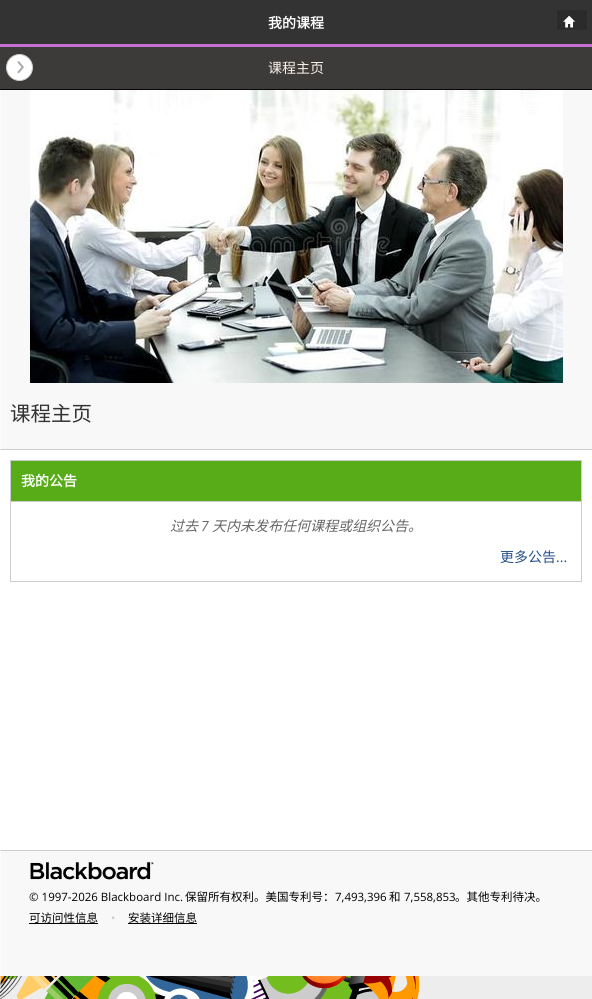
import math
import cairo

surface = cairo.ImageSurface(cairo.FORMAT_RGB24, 592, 999)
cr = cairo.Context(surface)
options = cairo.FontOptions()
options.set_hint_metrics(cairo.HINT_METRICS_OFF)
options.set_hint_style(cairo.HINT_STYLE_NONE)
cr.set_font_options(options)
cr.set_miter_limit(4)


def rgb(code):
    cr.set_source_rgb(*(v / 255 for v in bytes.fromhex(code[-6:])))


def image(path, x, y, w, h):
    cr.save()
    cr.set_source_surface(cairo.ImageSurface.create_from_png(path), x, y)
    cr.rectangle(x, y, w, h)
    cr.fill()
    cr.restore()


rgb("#ededed")
cr.paint()
for x, y, w, h, color in [
    (0, 0, 592, 44, "#333333"),
    (0, 44, 592, 3, "#c56fd5"),
    (557, 10, 30, 20, "#2b2b2b"),
]:
    rgb(color)
    cr.rectangle(x, y, w, h)
    cr.fill()
image("img/1.png", 563, 15, 13, 13)
image("img/2.png", 0, 976, 463, 23)
rgb("#3d3a3a")
cr.rectangle(0, 47, 592, 42)
cr.fill()
rgb("#ffffff")
cr.arc(19.5, 67.5, 13, 0, 2 * math.pi)
cr.fill_preserve()
rgb("#cdcdcd")
cr.set_line_width(1)
cr.stroke()
for x, y, w, h, color in [
    (0, 89, 592, 1, "#090706"),
    (0, 90, 592, 886, "#f8f8f8"),
    (0, 450, 592, 400, "#ffffff"),
    (0, 449, 592, 1, "#cdcdcd"),
    (0, 850, 592, 1, "#cdcdcd"),
]:
    rgb(color)
    cr.rectangle(x, y, w, h)
    cr.fill()
cr.set_source_rgba(1, 1, 1, 0.5)
cr.new_path()
cr.move_to(-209, 990)
cr.line_to(-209, 991)
cr.line_to(1, 991)
cr.line_to(1, 90)
cr.line_to(0, 90)
cr.line_to(0, 990)
cr.close_path()
cr.fill()
image("img/3.png", 30, 90, 533, 293)
cr.rectangle(10.5, 460.5, 571, 121)
rgb("#cccccc")
cr.stroke()
rgb("#58ac17")
cr.rectangle(11, 461, 570, 40)
cr.fill()
rgb("#cccccc")
cr.rectangle(11, 501, 570, 1)
cr.fill()
image("img/4.png", 30, 862, 124, 18)
rgb("#000000")
cr.rectangle(29, 923, 69, 1)
cr.fill()
cr.rectangle(128, 923, 69, 1)
cr.fill()
cr.select_font_face("Noto Sans CJK SC", cairo.FONT_SLANT_NORMAL, cairo.FONT_WEIGHT_BOLD)
cr.set_font_size(14)
rgb("#ffffff")
cr.move_to(268, 28)
cr.show_text("我的课程")
cr.select_font_face("Open Sans")
cr.set_font_size(30)
rgb("#adaaaa")
cr.move_to(16, 75)
cr.show_text("›")
cr.select_font_face("Noto Sans CJK SC")
cr.set_font_size(14)
rgb("#fbf2e9")
cr.move_to(268, 73)
cr.show_text("课程主页")
cr.set_font_size(20.5)
rgb("#333333")
cr.move_to(10, 421)
cr.show_text("课程主页")
cr.select_font_face("Noto Sans CJK SC", cairo.FONT_SLANT_NORMAL, cairo.FONT_WEIGHT_BOLD)
cr.set_font_size(14)
rgb("#ffffff")
cr.move_to(21, 486)
cr.show_text("我的公告")
cr.select_font_face("Noto Sans CJK SC", cairo.FONT_SLANT_ITALIC)
rgb("#666666")
cr.move_to(170, 531)
cr.show_text("过去")
cr.select_font_face("Open Sans", cairo.FONT_SLANT_ITALIC)
cr.move_to(201, 531)
cr.show_text("7")
cr.select_font_face("Noto Sans CJK SC", cairo.FONT_SLANT_ITALIC)
cr.move_to(212, 531)
cr.show_text("天内未发布任何课程或组织公告。")
cr.select_font_face("Noto Sans CJK SC")
rgb("#255189")
cr.move_to(500, 562)
cr.show_text("更多公告")
cr.select_font_face("Open Sans")
cr.move_to(556, 562)
cr.show_text("...")
cr.set_font_size(11.5)
rgb("#000000")
cr.move_to(29, 901)
cr.show_text("© 1997-2026 Blackboard Inc.")
cr.select_font_face("Noto Sans CJK SC")
cr.move_to(185, 901)
cr.show_text("保留所有权利。美国专利号：")
cr.select_font_face("Open Sans")
cr.move_to(335, 901)
cr.show_text("7,493,396")
cr.select_font_face("Noto Sans CJK SC")
cr.move_to(389, 901)
cr.show_text("和")
cr.select_font_face("Open Sans")
cr.move_to(404, 901)
cr.show_text("7,558,853")
cr.select_font_face("Noto Sans CJK SC")
cr.move_to(455, 901)
cr.show_text("。其他专利待决。")
cr.move_to(29, 922)
cr.show_text("可访问性信息")
cr.select_font_face("Open Sans")
rgb("#cccccc")
cr.move_to(111, 922)
cr.show_text("•")
cr.select_font_face("Noto Sans CJK SC")
rgb("#000000")
cr.move_to(128, 922)
cr.show_text("安装详细信息")
surface.write_to_png("page.png")
